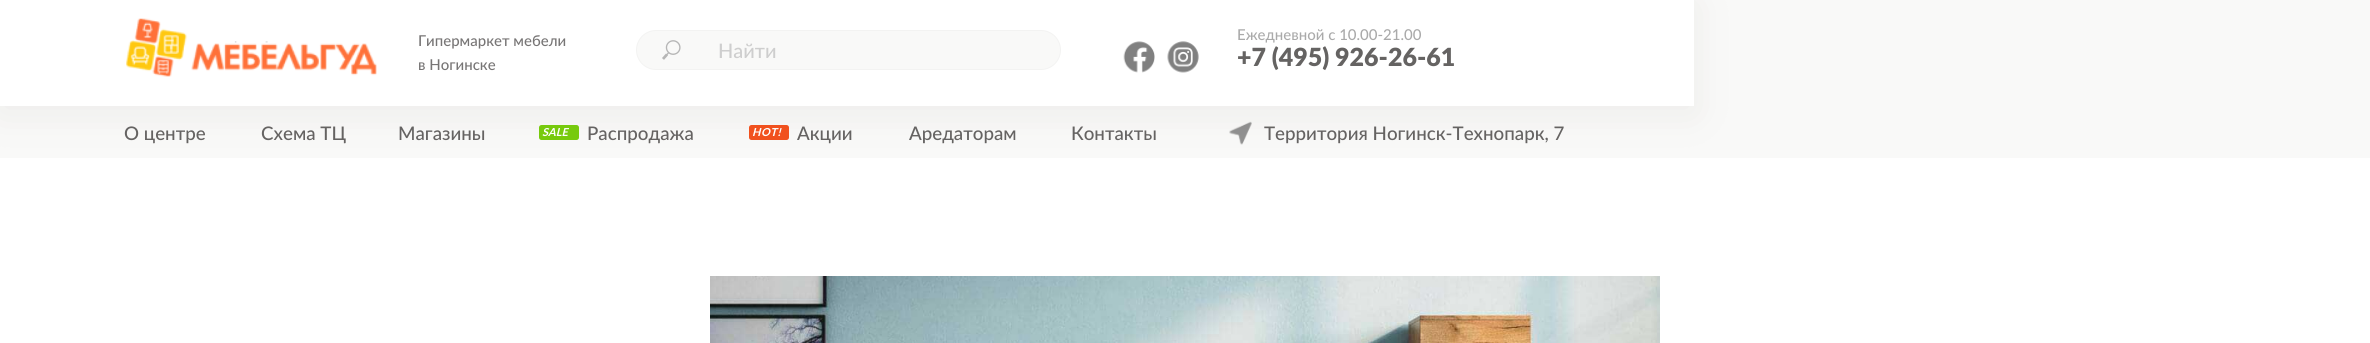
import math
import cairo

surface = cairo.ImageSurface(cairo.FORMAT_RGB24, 2370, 343)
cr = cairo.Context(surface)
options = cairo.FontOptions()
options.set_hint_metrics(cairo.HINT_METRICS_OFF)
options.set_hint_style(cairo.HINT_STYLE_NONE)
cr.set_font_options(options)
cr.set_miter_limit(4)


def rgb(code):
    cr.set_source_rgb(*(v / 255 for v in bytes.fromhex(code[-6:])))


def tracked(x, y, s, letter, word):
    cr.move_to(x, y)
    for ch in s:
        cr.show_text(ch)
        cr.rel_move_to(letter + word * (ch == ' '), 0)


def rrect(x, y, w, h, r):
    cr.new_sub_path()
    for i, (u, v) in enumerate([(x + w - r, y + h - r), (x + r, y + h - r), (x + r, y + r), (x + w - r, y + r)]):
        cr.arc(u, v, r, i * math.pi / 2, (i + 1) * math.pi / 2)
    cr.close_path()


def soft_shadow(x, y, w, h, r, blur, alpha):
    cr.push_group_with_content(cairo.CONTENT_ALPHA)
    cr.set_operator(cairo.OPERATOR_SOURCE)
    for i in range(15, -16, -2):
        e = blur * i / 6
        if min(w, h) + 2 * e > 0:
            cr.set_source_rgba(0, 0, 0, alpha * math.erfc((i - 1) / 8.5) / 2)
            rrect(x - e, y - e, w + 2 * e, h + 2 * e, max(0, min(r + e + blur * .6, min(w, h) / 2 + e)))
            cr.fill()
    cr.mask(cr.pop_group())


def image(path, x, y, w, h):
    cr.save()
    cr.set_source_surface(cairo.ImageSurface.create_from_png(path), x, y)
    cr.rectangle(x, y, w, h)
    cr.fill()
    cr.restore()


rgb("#ffffff")
cr.paint()
rgb("#f9f9f8")
cr.rectangle(0, 0, 2370, 158)
cr.fill()
rgb("#b5b3b1")
soft_shadow(0, 6, 1694, 107, 0, 19, 0.2)
rgb("#ffffff")
cr.rectangle(0, 0, 1694, 106)
cr.fill()
image("img/1.png", 126, 18, 251, 59)
rgb("#f9f9f8")
rrect(636.5, 30.5, 424, 39, 19.5)
cr.fill_preserve()
rgb("#f3f3f2")
cr.set_line_width(1)
cr.stroke()
image("img/2.png", 662, 40, 19, 20)
image("img/3.png", 1123, 41, 32, 32)
image("img/4.png", 1167, 41, 32, 32)
rgb("#77ca0d")
rrect(539, 125, 40, 15, 2.5)
cr.fill()
rgb("#f1511e")
rrect(749, 125, 40, 15, 2.5)
cr.fill()
image("img/5.png", 1229, 121, 23, 24)
image("img/6.png", 710, 276, 950, 67)
cr.select_font_face("Lato Medium")
cr.set_font_size(15)
rgb("#777575")
cr.move_to(418, 46)
cr.show_text("Гипермаркет мебели")
cr.move_to(418, 70)
cr.show_text("в Ногинске")
cr.set_font_size(20)
rgb("#cecece")
cr.move_to(718, 58)
cr.show_text("Найти")
cr.set_font_size(15)
rgb("#aaaaaa")
cr.move_to(1237, 40)
cr.show_text("Ежедневной с 10.00-21.00")
cr.select_font_face("Lato Black")
cr.set_font_size(25)
rgb("#656362")
cr.move_to(1237, 66)
cr.show_text("+7 (495) 926-26-61")
cr.select_font_face("Lato Medium")
cr.set_font_size(18.75)
for x, y, s in [
    (124, 140, "О центре"),
    (261, 140, "Схема ТЦ"),
    (398, 140, "Магазины"),
    (587, 140, "Распродажа"),
    (797, 140, "Акции"),
    (909, 140, "Аредаторам"),
    (1071, 140, "Контакты"),
    (1264, 140, "Территория Ногинск-Технопарк, 7"),
]:
    cr.move_to(x, y)
    cr.show_text(s)
cr.select_font_face("Lato", cairo.FONT_SLANT_ITALIC, cairo.FONT_WEIGHT_BOLD)
cr.set_font_size(11)
rgb("#ffffff")
cr.move_to(542, 136)
cr.show_text("SALE")
tracked(752, 136, "HOT!", 0.5, 0)
surface.write_to_png("page.png")
